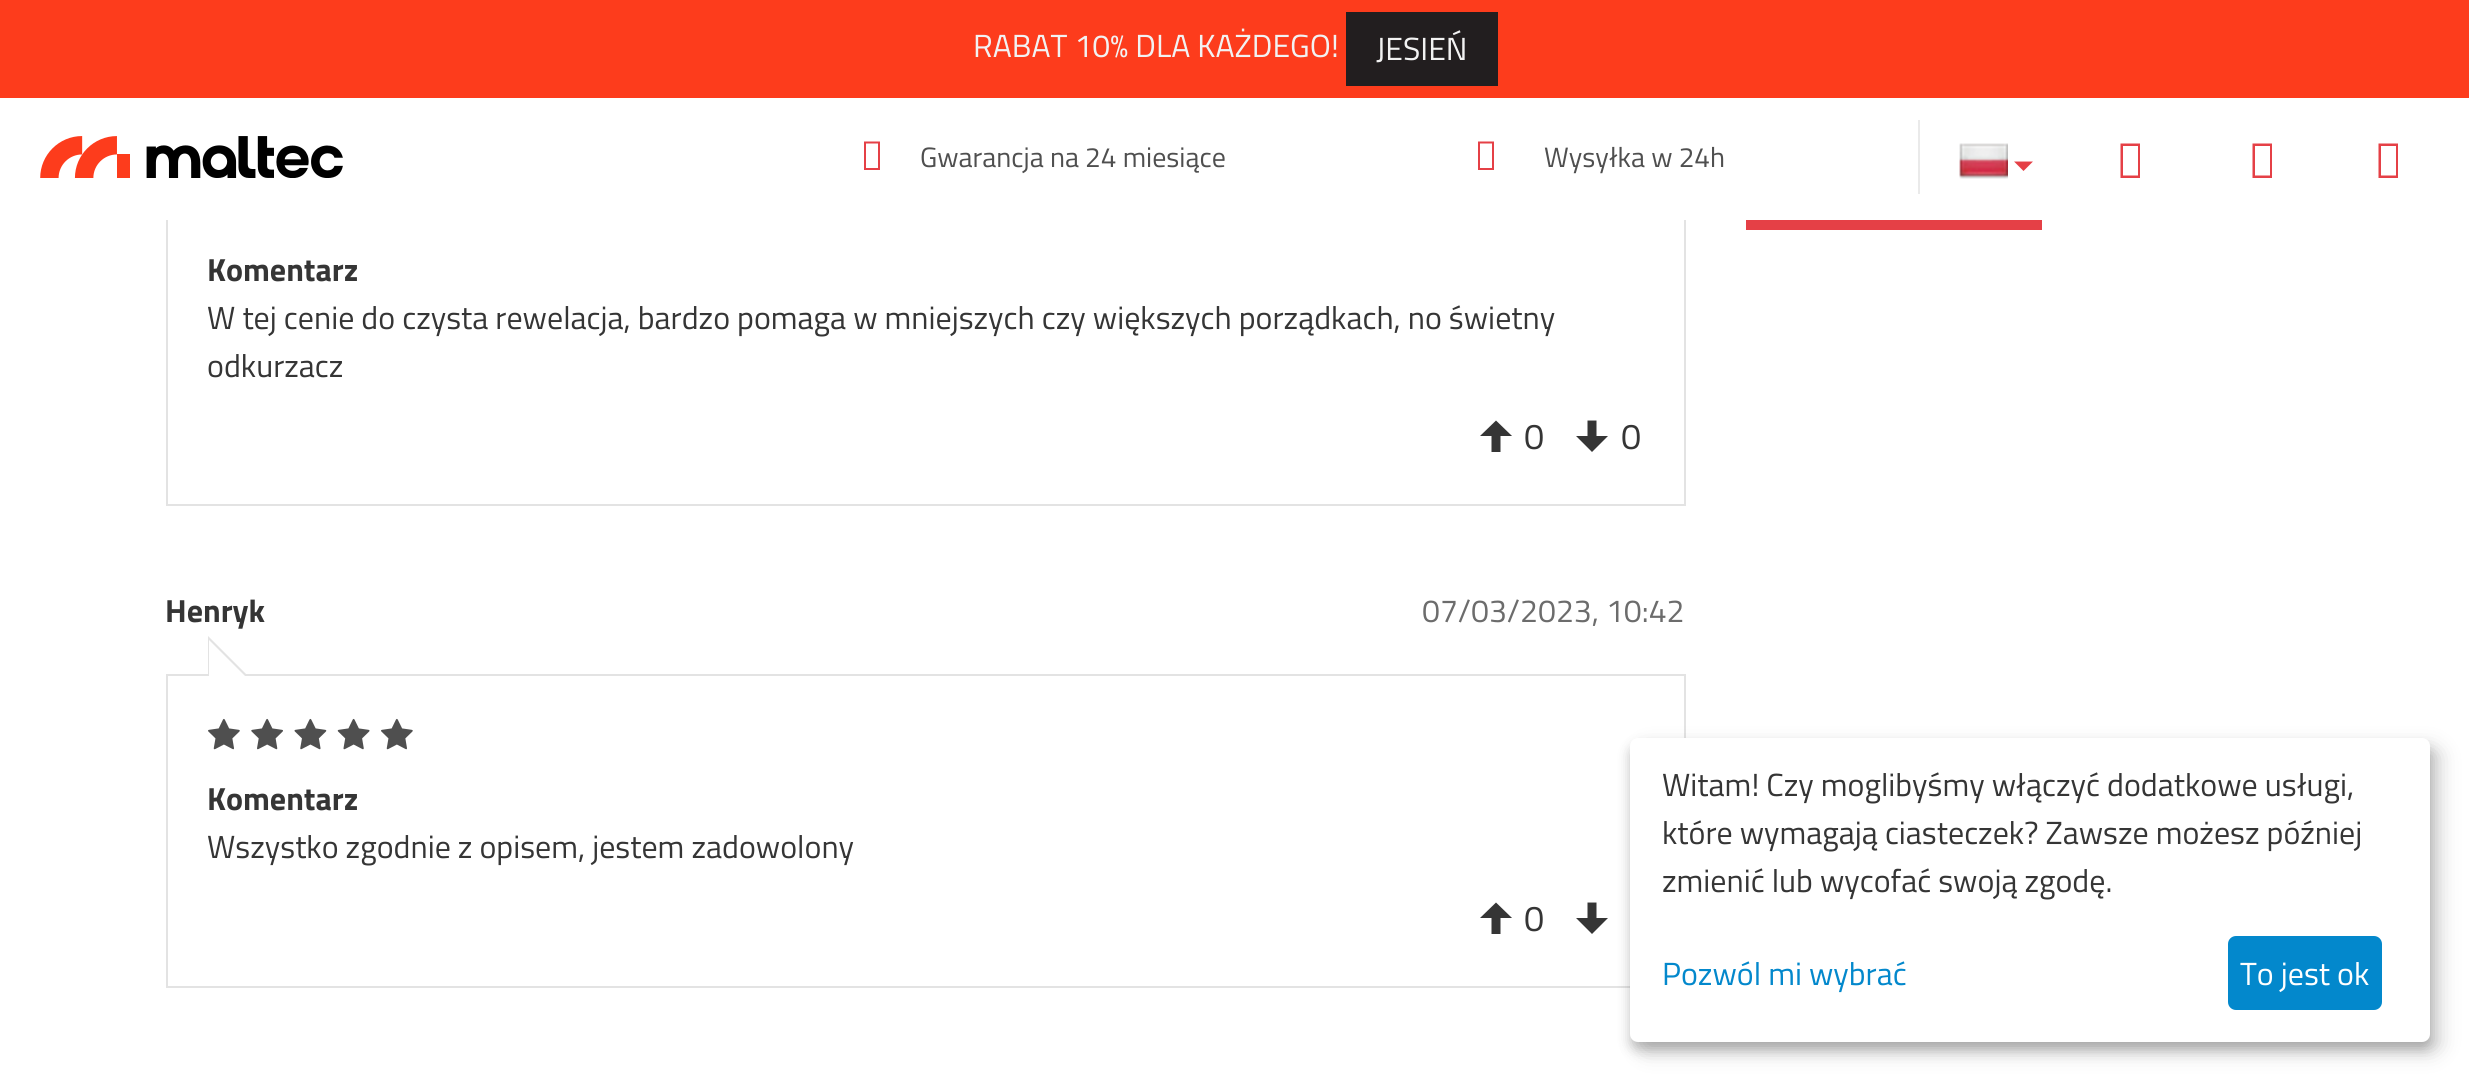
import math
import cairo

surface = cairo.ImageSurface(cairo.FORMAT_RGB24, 2469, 1081)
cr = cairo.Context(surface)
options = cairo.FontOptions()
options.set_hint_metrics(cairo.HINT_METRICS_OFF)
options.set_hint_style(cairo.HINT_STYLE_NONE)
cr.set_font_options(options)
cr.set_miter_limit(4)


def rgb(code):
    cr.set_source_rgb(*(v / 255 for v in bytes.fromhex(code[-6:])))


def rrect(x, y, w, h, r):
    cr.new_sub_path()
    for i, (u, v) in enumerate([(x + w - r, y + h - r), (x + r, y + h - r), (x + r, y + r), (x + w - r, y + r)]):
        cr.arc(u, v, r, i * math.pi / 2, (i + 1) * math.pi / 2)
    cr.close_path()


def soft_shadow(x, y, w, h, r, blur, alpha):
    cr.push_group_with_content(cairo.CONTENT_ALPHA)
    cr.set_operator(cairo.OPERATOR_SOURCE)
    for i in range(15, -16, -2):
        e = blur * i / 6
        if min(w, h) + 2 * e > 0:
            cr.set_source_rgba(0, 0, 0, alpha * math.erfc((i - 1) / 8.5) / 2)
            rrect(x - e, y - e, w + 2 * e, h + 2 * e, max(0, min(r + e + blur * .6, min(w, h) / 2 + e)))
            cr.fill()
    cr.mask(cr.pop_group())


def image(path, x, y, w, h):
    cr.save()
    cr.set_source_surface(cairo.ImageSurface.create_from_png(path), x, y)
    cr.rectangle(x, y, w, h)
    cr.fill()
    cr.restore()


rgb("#ffffff")
cr.paint()
cr.rectangle(167, 145, 1518, 360)
rgb("#e3e3e3")
cr.stroke()
for x, y, w, h, color in [
    (166, 144, 1520, 76, "#ffffff"),
    (0, 0, 2469, 98, "#fd3c1c"),
    (1346, 12, 152, 74, "#221e1f"),
]:
    rgb(color)
    cr.rectangle(x, y, w, h)
    cr.fill()
image("img/1.png", 40, 136, 303, 42)
rgb("#e54046")
cr.new_path()
cr.move_to(864, 170)
cr.line_to(864, 141.5)
cr.line_to(880, 141.5)
cr.line_to(880, 170)
cr.close_path()
cr.move_to(866, 168)
cr.line_to(878, 168)
cr.line_to(878, 143.5)
cr.line_to(866, 143.5)
cr.close_path()
cr.fill()
cr.new_path()
cr.move_to(1478, 170)
cr.line_to(1478, 141.5)
cr.line_to(1494, 141.5)
cr.line_to(1494, 170)
cr.close_path()
cr.move_to(1480, 168)
cr.line_to(1492, 168)
cr.line_to(1492, 143.5)
cr.line_to(1480, 143.5)
cr.close_path()
cr.fill()
rgb("#eaeaea")
cr.rectangle(1918, 120, 2, 74)
cr.fill()
image("img/2.png", 1959, 143, 49, 36)
rgb("#e54046")
cr.new_path()
cr.move_to(2023.5, 171)
cr.line_to(2014, 161.5)
cr.line_to(2033, 161.5)
cr.close_path()
cr.fill()
cr.new_path()
cr.move_to(2120.5, 178)
cr.line_to(2120.5, 143.5)
cr.line_to(2140, 143.5)
cr.line_to(2140, 178)
cr.close_path()
cr.move_to(2123, 175.5)
cr.line_to(2138, 175.5)
cr.line_to(2138, 146)
cr.line_to(2123, 146)
cr.close_path()
cr.fill()
cr.new_path()
cr.move_to(2252.5, 178)
cr.line_to(2252.5, 143.5)
cr.line_to(2272, 143.5)
cr.line_to(2272, 178)
cr.close_path()
cr.move_to(2255, 175.5)
cr.line_to(2270, 175.5)
cr.line_to(2270, 146)
cr.line_to(2255, 146)
cr.close_path()
cr.fill()
cr.new_path()
cr.move_to(2378.5, 178)
cr.line_to(2378.5, 143.5)
cr.line_to(2398, 143.5)
cr.line_to(2398, 178)
cr.close_path()
cr.move_to(2381, 175.5)
cr.line_to(2396, 175.5)
cr.line_to(2396, 146)
cr.line_to(2381, 146)
cr.close_path()
cr.fill()
cr.rectangle(1746, 220, 296, 10)
cr.fill()
rgb("#353535")
cr.new_path()
cr.move_to(1491.5, 452)
cr.line_to(1491.5, 436)
cr.line_to(1480, 436)
cr.line_to(1496, 420.5)
cr.line_to(1512, 436)
cr.line_to(1500.5, 436)
cr.line_to(1500.5, 452)
cr.close_path()
cr.fill()
cr.new_path()
cr.move_to(1596.5, 420.5)
cr.line_to(1596.5, 436)
cr.line_to(1608, 436)
cr.line_to(1592, 452)
cr.line_to(1576, 436)
cr.line_to(1587.5, 436)
cr.line_to(1587.5, 420.5)
cr.close_path()
cr.fill()
cr.rectangle(167, 675, 1518, 312)
rgb("#e3e3e3")
cr.stroke()
cr.new_path()
cr.move_to(208, 676)
cr.line_to(208, 636)
cr.line_to(248, 676)
cr.close_path()
cr.fill()
rgb("#ffffff")
cr.new_path()
cr.move_to(209, 676)
cr.line_to(209, 640)
cr.line_to(245, 676)
cr.close_path()
cr.fill()
image("img/3.png", 208, 718, 205, 32)
rgb("#353535")
cr.new_path()
cr.move_to(1491.5, 934)
cr.line_to(1491.5, 918)
cr.line_to(1480, 918)
cr.line_to(1496, 902.5)
cr.line_to(1512, 918)
cr.line_to(1500.5, 918)
cr.line_to(1500.5, 934)
cr.close_path()
cr.fill()
cr.new_path()
cr.move_to(1596.5, 902.5)
cr.line_to(1596.5, 918)
cr.line_to(1608, 918)
cr.line_to(1592, 934)
cr.line_to(1576, 918)
cr.line_to(1587.5, 918)
cr.line_to(1587.5, 902.5)
cr.close_path()
cr.fill()
rgb("#000000")
soft_shadow(1640, 748, 800, 304, 8, 10, 0.19)
soft_shadow(1630, 746, 800, 304, 8, 6, 0.2)
rgb("#ffffff")
rrect(1630, 738, 800, 304, 8)
cr.fill()
rgb("#0388cc")
rrect(2228, 936, 154, 74, 8)
cr.fill()
cr.select_font_face("Titillium Web")
cr.set_font_size(32)
rgb("#f2f2f2")
cr.move_to(973, 57)
cr.show_text("RABAT 10% DLA KAŻDEGO!")
cr.move_to(1376, 60)
cr.show_text("JESIEŃ")
cr.set_font_size(28)
rgb("#4f4f4f")
cr.move_to(920, 167)
cr.show_text("Gwarancja na 24 miesiące")
cr.move_to(1544, 167)
cr.show_text("Wysyłka w 24h")
cr.select_font_face("Titillium Web", cairo.FONT_SLANT_NORMAL, cairo.FONT_WEIGHT_BOLD)
cr.set_font_size(32)
rgb("#353535")
cr.move_to(207, 281)
cr.show_text("Komentarz")
cr.select_font_face("Titillium Web")
cr.move_to(207, 329)
cr.show_text("W tej cenie do czysta rewelacja, bardzo pomaga w mniejszych czy większych porządkach, no świetny")
cr.move_to(207, 377)
cr.show_text("odkurzacz")
cr.set_font_size(36)
cr.move_to(1524, 449)
cr.show_text("0")
cr.move_to(1621, 449)
cr.show_text("0")
cr.select_font_face("Titillium Web", cairo.FONT_SLANT_NORMAL, cairo.FONT_WEIGHT_BOLD)
cr.set_font_size(32)
cr.move_to(165, 622)
cr.show_text("Henryk")
cr.select_font_face("Titillium Web")
rgb("#6c6c6c")
cr.move_to(1422, 622)
cr.show_text("07/03/2023, 10:42")
cr.select_font_face("Titillium Web", cairo.FONT_SLANT_NORMAL, cairo.FONT_WEIGHT_BOLD)
rgb("#353535")
cr.move_to(207, 810)
cr.show_text("Komentarz")
cr.select_font_face("Titillium Web")
cr.move_to(207, 858)
cr.show_text("Wszystko zgodnie z opisem, jestem zadowolony")
cr.set_font_size(36)
cr.move_to(1524, 931)
cr.show_text("0")
cr.set_font_size(32)
for x, y, s in [
    (1662, 796, "Witam! Czy moglibyśmy włączyć dodatkowe usługi,"),
    (1662, 844, "które wymagają ciasteczek? Zawsze możesz później"),
    (1662, 892, "zmienić lub wycofać swoją zgodę."),
]:
    cr.move_to(x, y)
    cr.show_text(s)
rgb("#0388cc")
cr.move_to(1662, 985)
cr.show_text("Pozwól mi wybrać")
rgb("#ffffff")
cr.move_to(2240, 985)
cr.show_text("To jest ok")
surface.write_to_png("page.png")
